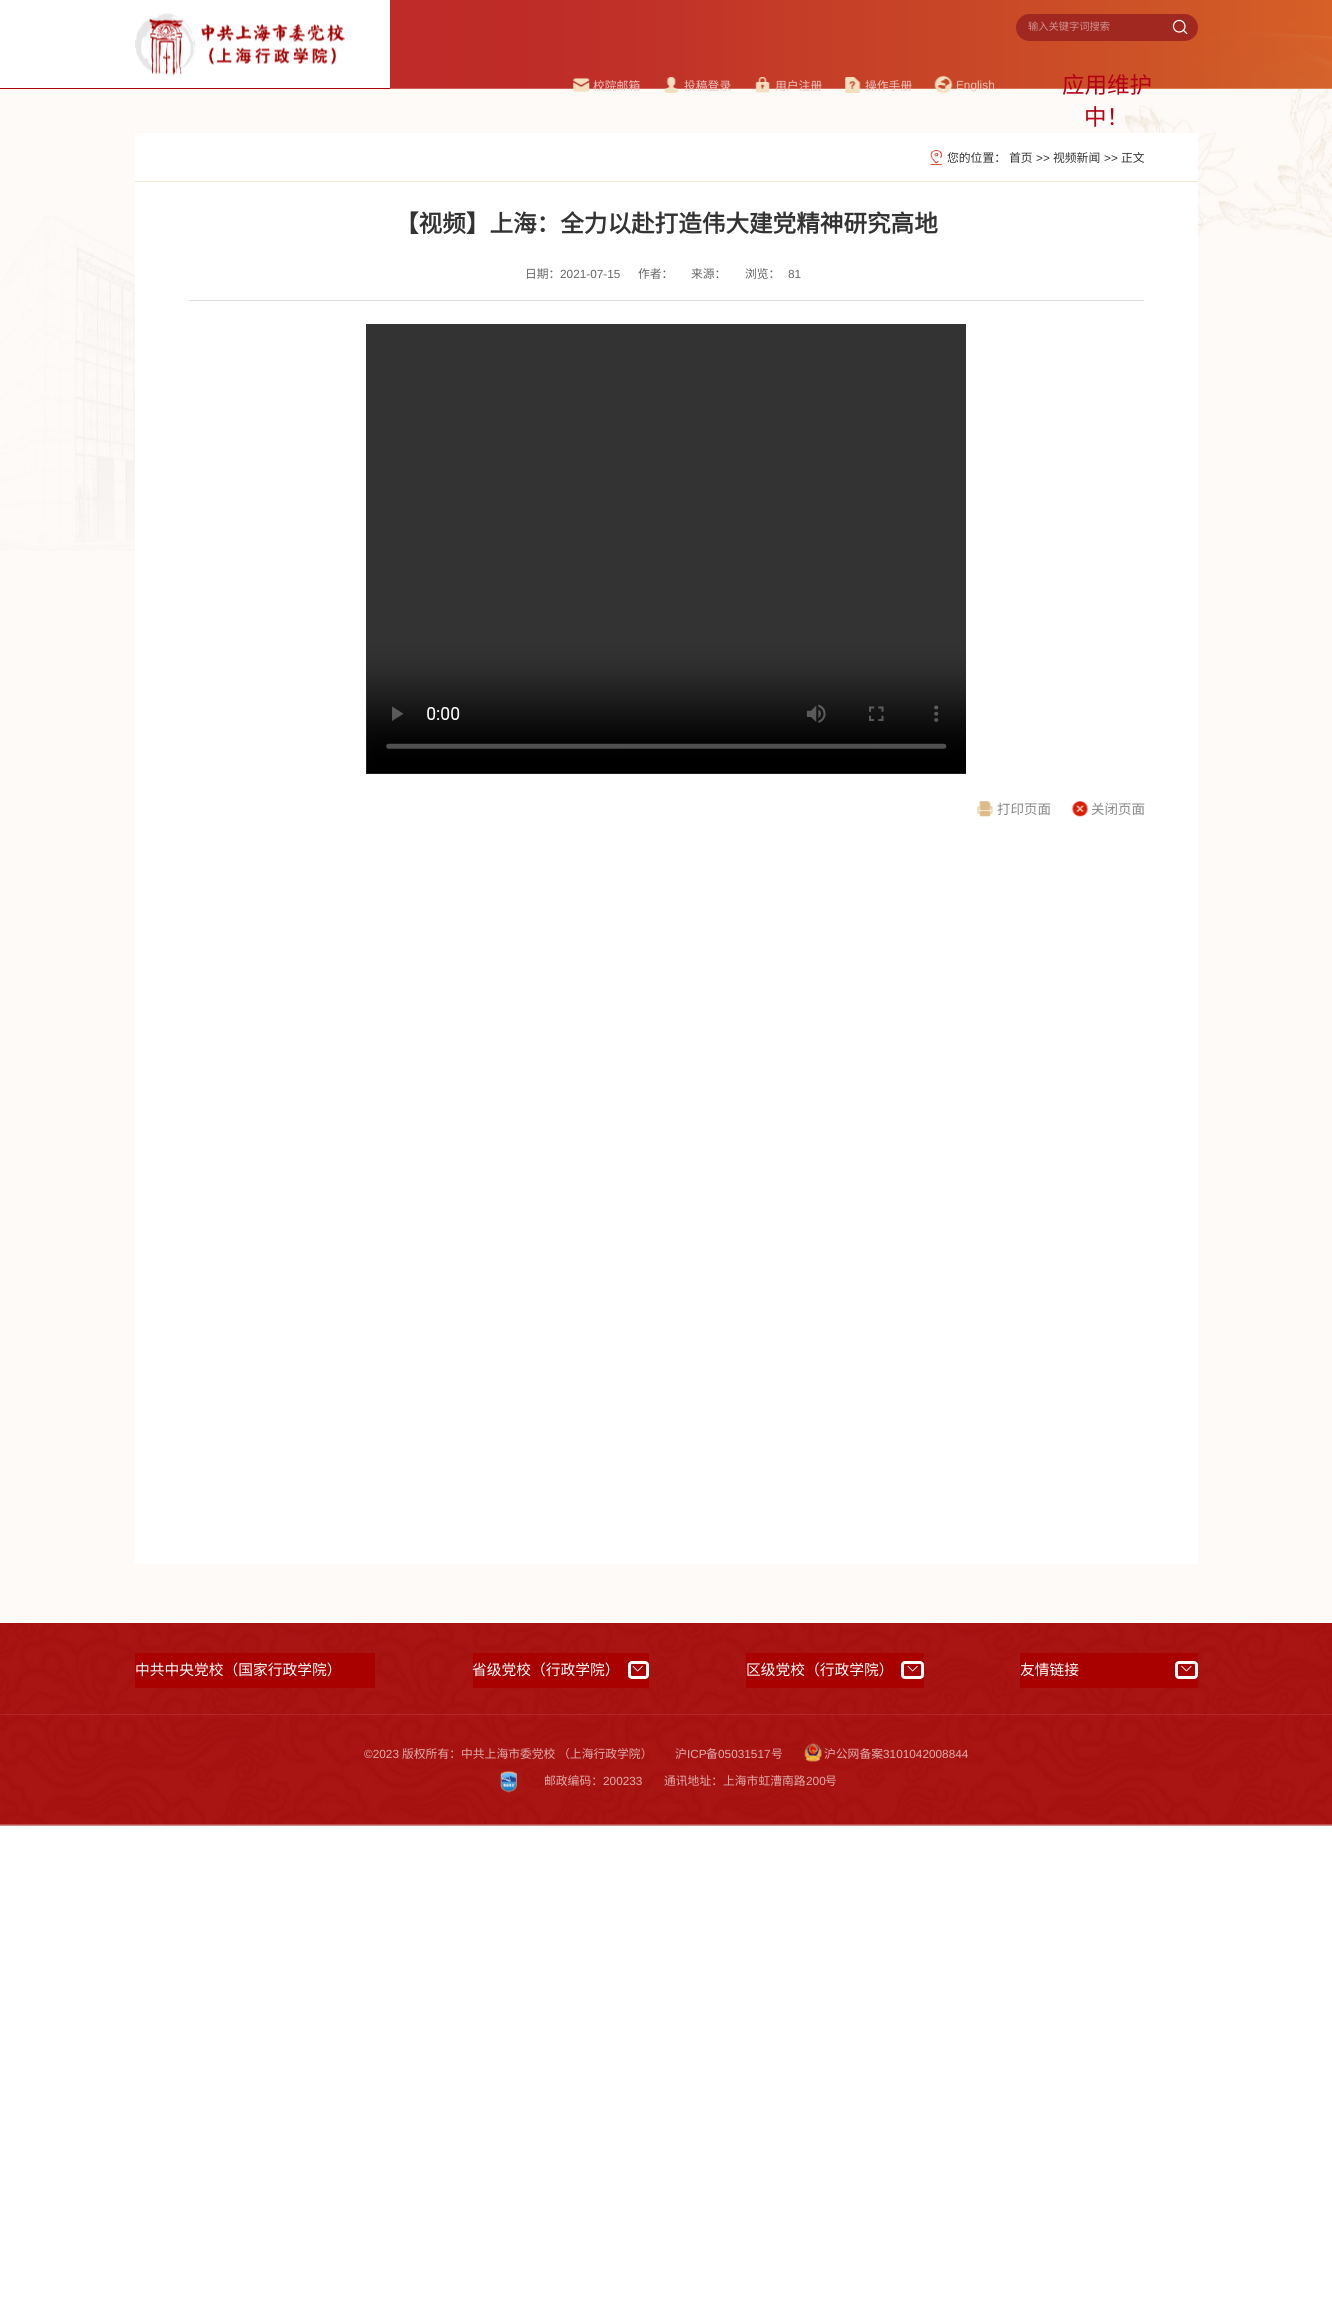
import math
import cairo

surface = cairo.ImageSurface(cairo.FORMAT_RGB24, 1332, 2301)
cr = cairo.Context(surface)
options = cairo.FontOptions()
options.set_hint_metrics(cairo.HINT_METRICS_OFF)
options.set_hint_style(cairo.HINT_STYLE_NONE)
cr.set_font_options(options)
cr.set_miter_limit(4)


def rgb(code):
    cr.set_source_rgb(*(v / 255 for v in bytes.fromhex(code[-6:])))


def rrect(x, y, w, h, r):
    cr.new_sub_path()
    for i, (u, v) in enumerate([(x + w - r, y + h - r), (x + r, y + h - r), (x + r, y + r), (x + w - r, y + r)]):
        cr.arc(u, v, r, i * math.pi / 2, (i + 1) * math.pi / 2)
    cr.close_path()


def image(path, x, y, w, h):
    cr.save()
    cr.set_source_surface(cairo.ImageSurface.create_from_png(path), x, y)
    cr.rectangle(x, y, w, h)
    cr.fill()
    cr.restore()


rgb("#ffffff")
cr.paint()
image("img/1.png", 135, 13, 210, 63)
rgb("#fefaf7")
cr.rectangle(0, 89, 1332, 1534)
cr.fill()
image("img/9.png", 0, 88, 1332, 463)
image("img/2.png", 390, 0, 942, 89)
rgb("#ad0109")
cr.rectangle(0, 88, 390, 1)
cr.fill()
image("img/3.png", 573, 78, 17, 14)
image("img/4.png", 664, 77, 15, 16)
image("img/5.png", 755, 77, 15, 16)
image("img/6.png", 845, 77, 16, 16)
image("img/7.png", 934, 76, 19, 17)
rgb("#a02821")
rrect(1016, 14, 182, 27, 13.5)
cr.fill()
image("img/8.png", 1172, 19, 16, 16)
rgb("#ffffff")
cr.rectangle(135, 133, 1063, 1431)
cr.fill()
rgb("#f3e7d5")
cr.rectangle(135, 181, 1063, 1)
cr.fill()
image("img/10.png", 930, 150, 13, 15)
rgb("#dddddd")
cr.rectangle(189, 300, 955, 1)
cr.fill()
image("img/11.png", 366, 324, 600, 450)
image("img/12.png", 977, 801, 16, 16)
image("img/13.png", 1072, 801, 16, 16)
image("img/14.png", 0, 1623, 1332, 203)
cr.set_source_rgba(1, 1, 1, 0.1)
cr.rectangle(0, 1714, 1332, 1)
cr.fill()
rgb("#a90000")
cr.rectangle(135, 1653, 240, 35)
cr.rectangle(473, 1653, 176, 35)
cr.fill()
rrect(629.5, 1662.5, 18, 15, 2.5)
rgb("#ffffff")
cr.set_line_width(3)
cr.stroke()
image("img/15.png", 632, 1665, 11, 7)
rgb("#a90000")
cr.rectangle(746, 1653, 178, 35)
cr.fill()
rrect(902.5, 1662.5, 20, 15, 2.5)
rgb("#ffffff")
cr.stroke()
image("img/15.png", 907, 1665, 11, 7)
rgb("#a90000")
cr.rectangle(1020, 1653, 178, 35)
cr.fill()
rrect(1176.5, 1662.5, 20, 15, 2.5)
rgb("#ffffff")
cr.stroke()
image("img/16.png", 1181, 1665, 11, 7)
image("img/17.png", 804, 1743, 18, 19)
image("img/18.png", 500, 1770, 17, 23)
cr.select_font_face("Noto Sans CJK SC")
cr.set_font_size(11.8)
rgb("#edc4c1")
for x, y, s in [
    (593, 90, "校院邮箱"),
    (684, 90, "投稿登录"),
    (775, 90, "用户注册"),
    (865, 90, "操作手册"),
]:
    cr.move_to(x, y)
    cr.show_text(s)
cr.select_font_face("Liberation Sans")
rgb("#eec5ba")
cr.move_to(956, 89)
cr.show_text("English")
cr.select_font_face("Noto Sans CJK SC")
cr.set_font_size(10.25)
rgb("#d09490")
cr.move_to(1028, 30)
cr.show_text("输入关键字词搜索")
cr.set_font_size(22.5)
rgb("#b30216")
cr.move_to(1062, 93)
cr.show_text("应用维护")
cr.move_to(1084, 125)
cr.show_text("中！")
cr.set_font_size(11.8)
rgb("#333333")
cr.move_to(947, 162)
cr.show_text("您的位置：")
cr.move_to(1009, 162)
cr.show_text("首页")
cr.select_font_face("Liberation Sans")
cr.move_to(1036, 162)
cr.show_text(">>")
cr.select_font_face("Noto Sans CJK SC")
cr.move_to(1053, 162)
cr.show_text("视频新闻")
cr.select_font_face("Liberation Sans")
cr.move_to(1104, 162)
cr.show_text(">>")
cr.select_font_face("Noto Sans CJK SC")
cr.move_to(1121, 162)
cr.show_text("正文")
cr.select_font_face("Noto Sans CJK SC", cairo.FONT_SLANT_NORMAL, cairo.FONT_WEIGHT_BOLD)
cr.set_font_size(23.6)
cr.move_to(395, 232)
cr.show_text("【视频】上海：全力以赴打造伟大建党精神研究高地")
cr.select_font_face("Noto Sans CJK SC")
cr.set_font_size(11.8)
rgb("#666666")
cr.move_to(525, 278)
cr.show_text("日期：")
cr.select_font_face("Liberation Sans")
cr.move_to(560, 278)
cr.show_text("2021-07-15")
cr.select_font_face("Noto Sans CJK SC")
for x, y, s in [
    (638, 278, "作者："),
    (691, 278, "来源："),
    (745, 278, "浏览："),
]:
    cr.move_to(x, y)
    cr.show_text(s)
cr.select_font_face("Liberation Sans")
cr.move_to(788, 278)
cr.show_text("81")
cr.select_font_face("Noto Sans CJK SC")
cr.set_font_size(13.5)
rgb("#888888")
cr.move_to(997, 814)
cr.show_text("打印页面")
cr.move_to(1091, 814)
cr.show_text("关闭页面")
cr.set_font_size(14.75)
rgb("#ffffff")
for x, y, s in [
    (135, 1675, "中共中央党校（国家行政学院）"),
    (472, 1675, "省级党校（行政学院）"),
    (746, 1675, "区级党校（行政学院）"),
    (1020, 1675, "友情链接"),
]:
    cr.move_to(x, y)
    cr.show_text(s)
cr.select_font_face("Liberation Sans")
cr.set_font_size(11.8)
rgb("#e0acac")
cr.move_to(364, 1758)
cr.show_text("©2023")
cr.select_font_face("Noto Sans CJK SC")
cr.move_to(402, 1758)
cr.show_text("版权所有：中共上海市委党校 （上海行政学院）")
cr.move_to(675, 1758)
cr.show_text("沪")
cr.select_font_face("Liberation Sans")
cr.move_to(687, 1758)
cr.show_text("ICP")
cr.select_font_face("Noto Sans CJK SC")
cr.move_to(706, 1758)
cr.show_text("备")
cr.select_font_face("Liberation Sans")
cr.move_to(718, 1758)
cr.show_text("05031517")
cr.select_font_face("Noto Sans CJK SC")
cr.move_to(771, 1758)
cr.show_text("号")
cr.move_to(824, 1758)
cr.show_text("沪公网备案")
cr.select_font_face("Liberation Sans")
cr.move_to(883, 1758)
cr.show_text("3101042008844")
cr.select_font_face("Noto Sans CJK SC")
cr.move_to(544, 1785)
cr.show_text("邮政编码：")
cr.select_font_face("Liberation Sans")
cr.move_to(603, 1785)
cr.show_text("200233")
cr.select_font_face("Noto Sans CJK SC")
cr.move_to(664, 1785)
cr.show_text("通讯地址：上海市虹漕南路")
cr.select_font_face("Liberation Sans")
cr.move_to(806, 1785)
cr.show_text("200")
cr.select_font_face("Noto Sans CJK SC")
cr.move_to(825, 1785)
cr.show_text("号")
surface.write_to_png("page.png")
